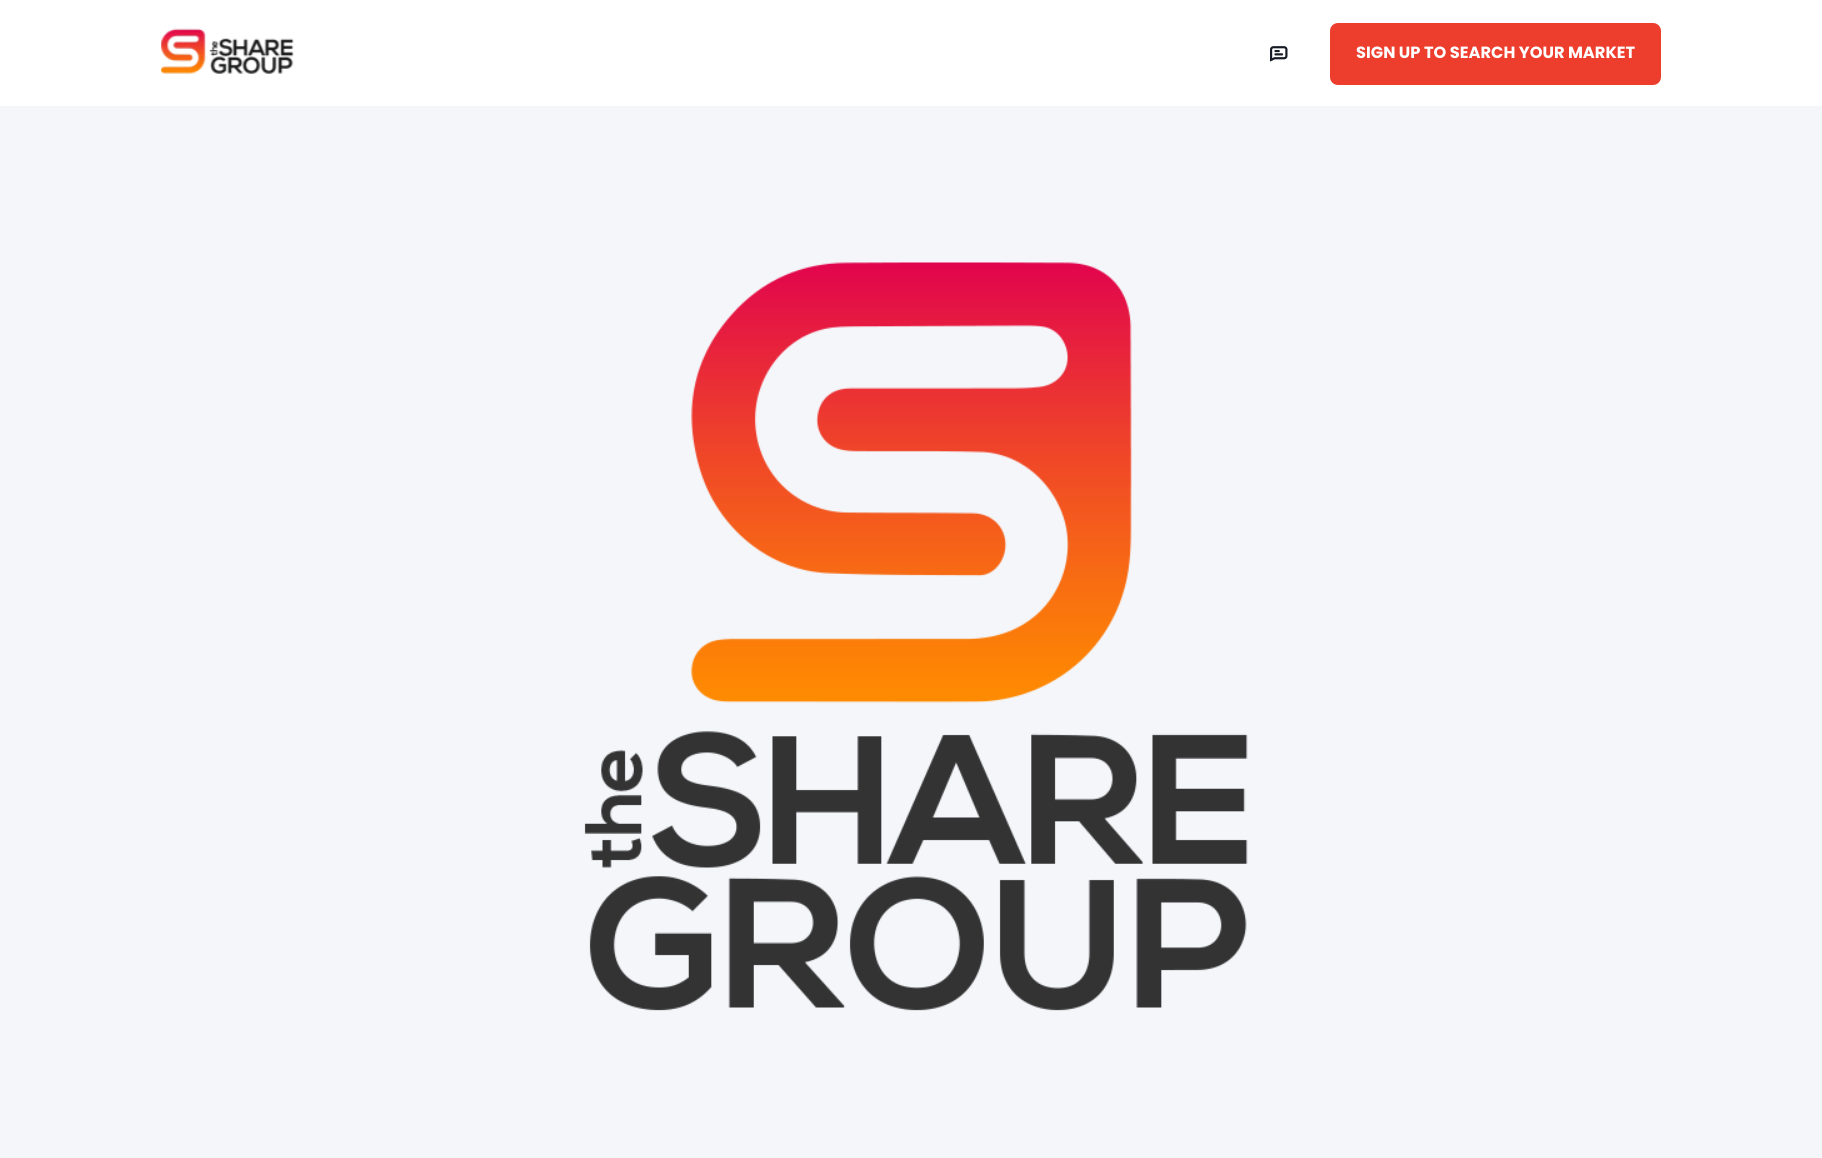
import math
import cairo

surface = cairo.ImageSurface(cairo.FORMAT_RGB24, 1822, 1158)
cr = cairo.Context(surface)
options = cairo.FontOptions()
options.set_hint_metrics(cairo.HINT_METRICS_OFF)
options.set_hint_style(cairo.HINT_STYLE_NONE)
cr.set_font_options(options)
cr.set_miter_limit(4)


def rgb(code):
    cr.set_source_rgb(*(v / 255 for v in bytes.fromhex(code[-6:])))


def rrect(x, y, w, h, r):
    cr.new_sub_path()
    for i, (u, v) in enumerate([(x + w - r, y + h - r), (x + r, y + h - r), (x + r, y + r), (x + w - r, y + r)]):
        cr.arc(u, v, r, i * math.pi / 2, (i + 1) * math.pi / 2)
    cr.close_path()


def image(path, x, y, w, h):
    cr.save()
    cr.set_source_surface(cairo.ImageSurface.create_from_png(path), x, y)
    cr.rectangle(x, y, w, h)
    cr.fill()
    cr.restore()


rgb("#ffffff")
cr.paint()
image("img/1.png", 161, 28, 133, 46)
image("img/2.png", 1270, 46, 18, 16)
rgb("#ed3d2d")
rrect(1330, 23, 331, 62, 8)
cr.fill()
rgb("#f4f6fa")
cr.rectangle(0, 106, 1822, 1052)
cr.fill()
image("img/3.png", 584, 262, 664, 749)
cr.select_font_face("Poppins", cairo.FONT_SLANT_NORMAL, cairo.FONT_WEIGHT_BOLD)
cr.set_font_size(16.25)
rgb("#ffffff")
cr.move_to(1356, 58)
cr.show_text("SIGN UP TO SEARCH YOUR MARKET")
surface.write_to_png("page.png")
